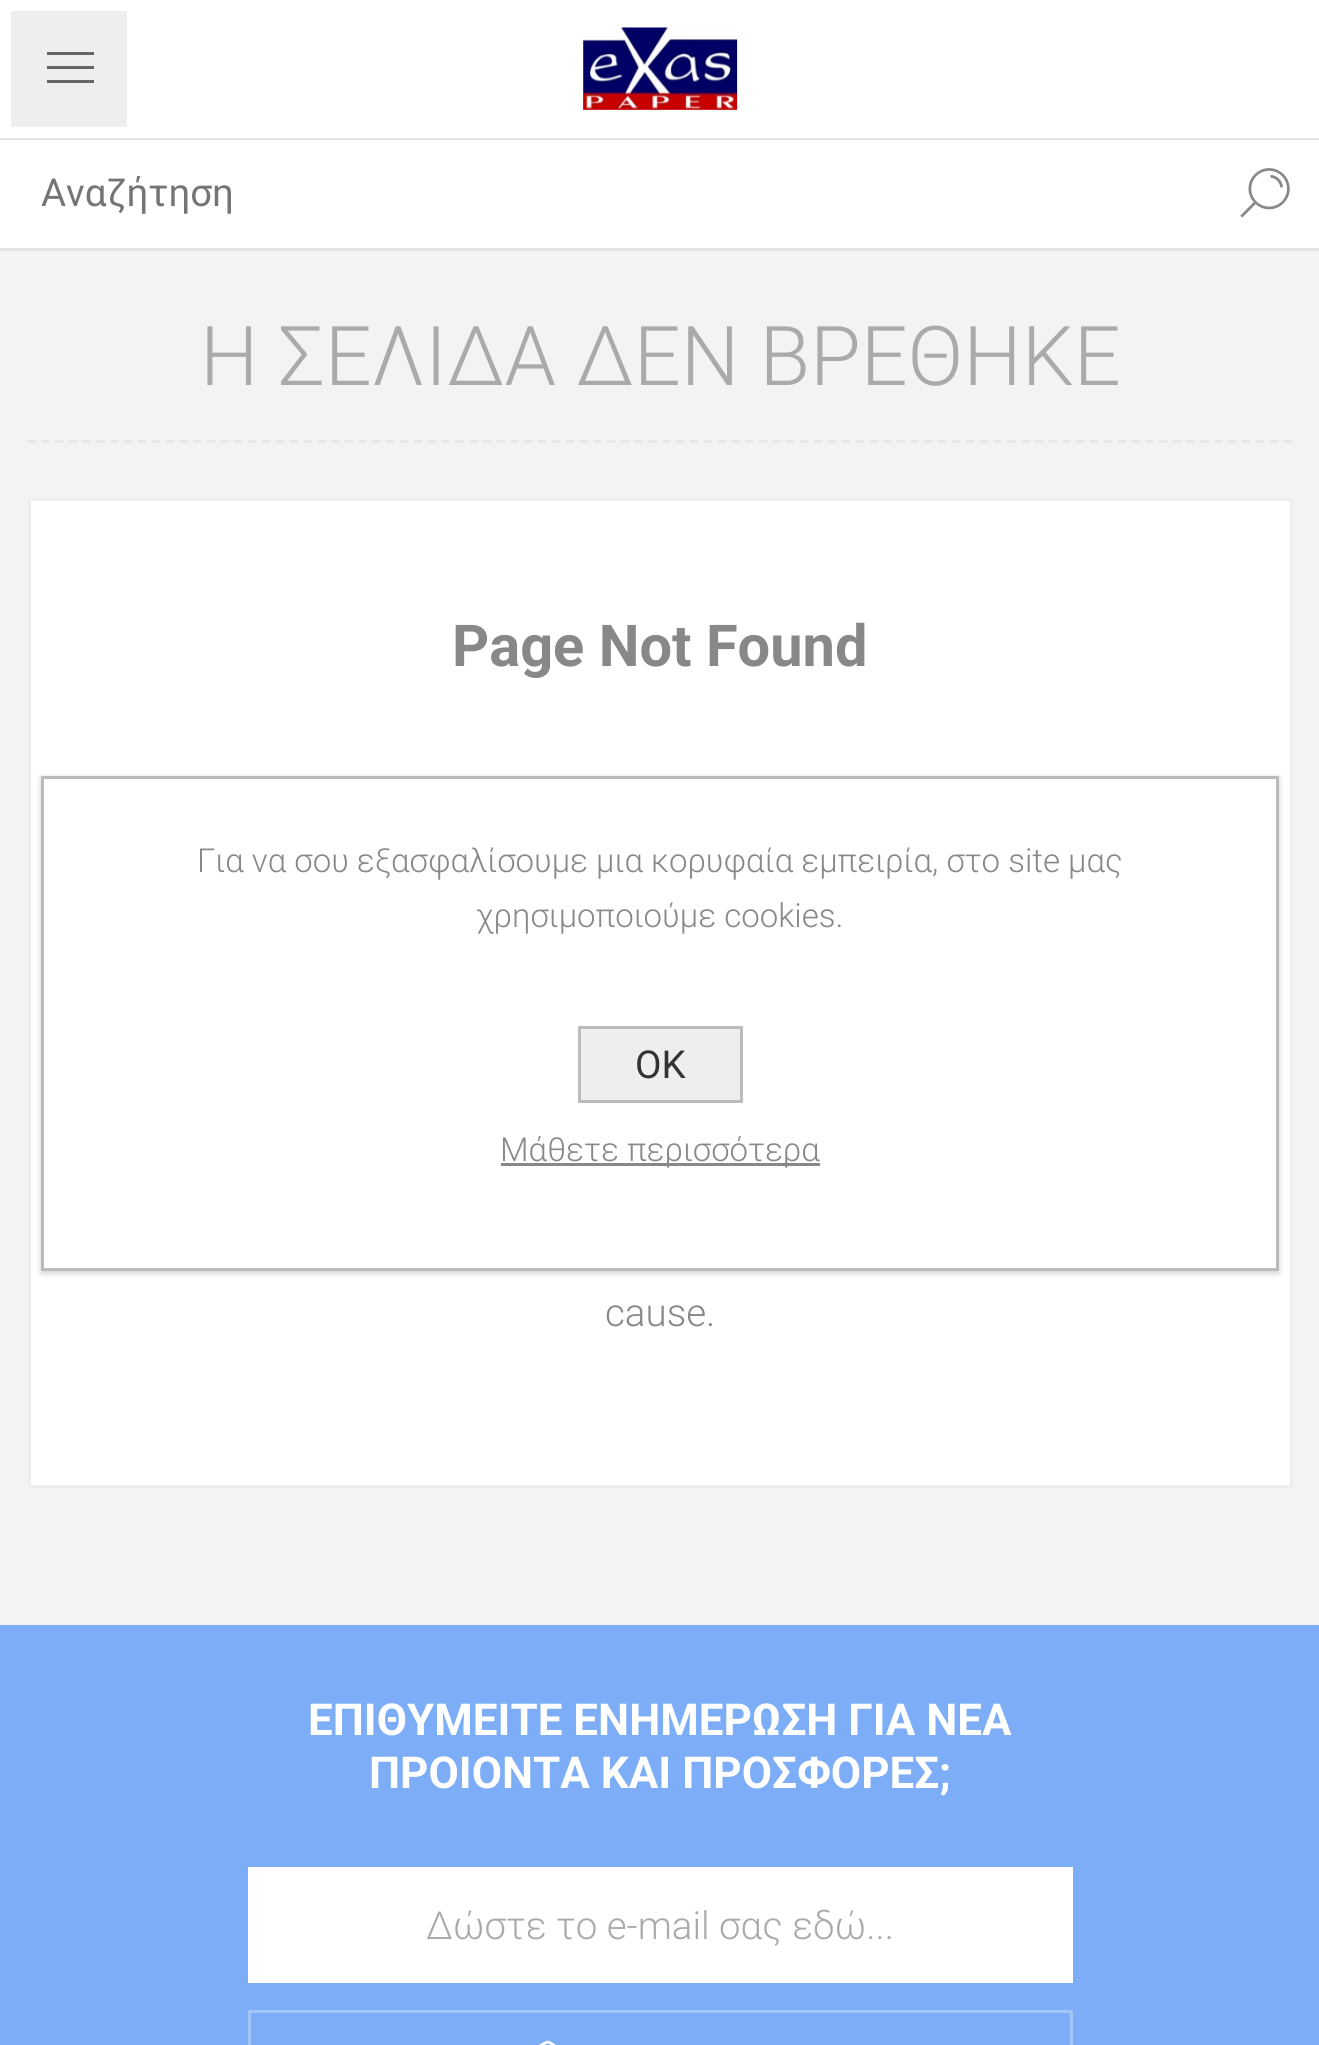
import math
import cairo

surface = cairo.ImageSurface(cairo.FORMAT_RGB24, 1319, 2045)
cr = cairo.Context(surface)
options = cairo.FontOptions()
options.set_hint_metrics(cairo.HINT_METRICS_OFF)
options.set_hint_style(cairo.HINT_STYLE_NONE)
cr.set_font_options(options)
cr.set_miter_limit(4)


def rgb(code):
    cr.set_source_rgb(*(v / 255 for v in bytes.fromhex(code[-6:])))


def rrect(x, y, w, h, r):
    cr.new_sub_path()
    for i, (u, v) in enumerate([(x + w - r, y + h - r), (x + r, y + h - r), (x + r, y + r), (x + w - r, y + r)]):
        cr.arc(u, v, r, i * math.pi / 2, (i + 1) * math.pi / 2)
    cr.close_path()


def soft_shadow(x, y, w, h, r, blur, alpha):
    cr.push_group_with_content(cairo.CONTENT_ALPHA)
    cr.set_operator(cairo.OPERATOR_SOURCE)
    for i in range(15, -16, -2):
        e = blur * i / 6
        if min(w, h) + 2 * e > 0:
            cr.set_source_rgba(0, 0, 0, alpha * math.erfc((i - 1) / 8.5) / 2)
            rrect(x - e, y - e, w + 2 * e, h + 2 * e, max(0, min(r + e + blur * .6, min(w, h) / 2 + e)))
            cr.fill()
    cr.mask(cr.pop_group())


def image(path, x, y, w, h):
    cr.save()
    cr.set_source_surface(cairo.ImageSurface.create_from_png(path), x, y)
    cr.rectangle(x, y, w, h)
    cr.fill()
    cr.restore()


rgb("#f3f3f3")
cr.paint()
rgb("#eeeeee")
cr.rectangle(5.5, 5.5, 127, 127)
cr.fill_preserve()
rgb("#ffffff")
cr.set_line_width(11)
cr.stroke()
for x, y, w, h, color in [
    (47, 52, 47, 3, "#666666"),
    (47, 66, 47, 3, "#666666"),
    (47, 80, 47, 3, "#666666"),
    (0, 138, 1319, 2, "#e3e3e3"),
    (138, 0, 1181, 138, "#ffffff"),
]:
    rgb(color)
    cr.rectangle(x, y, w, h)
    cr.fill()
image("img/1.png", 583, 27, 155, 83)
cr.rectangle(0, 140, 1319, 108)
cr.fill()
rgb("#e3e3e3")
cr.rectangle(0, 248, 1319, 3)
cr.fill()
image("img/2.png", 1240, 168, 50, 50)
cr.new_path()
cr.move_to(27.5, 441.5)
cr.line_to(1292.5, 441.5)
rgb("#e6e6e6")
cr.set_line_width(2.8)
cr.set_dash([8.25, 5.55])
cr.stroke()
rgb("#ffffff")
cr.rectangle(29.5, 499.5, 1262, 987)
cr.fill_preserve()
rgb("#eeeeee")
cr.set_line_width(3)
cr.set_dash([])
cr.stroke()
rgb("#7cadf6")
cr.rectangle(0, 1625, 1319, 420)
cr.fill()
rgb("#ffffff")
cr.rectangle(248, 1867, 825, 116)
cr.fill()
image("img/3.png", 539, 2040, 17, 5)
cr.rectangle(249.5, 2011.5, 822, 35)
rgb("#a3c6f9")
cr.stroke()
rgb("#000000")
soft_shadow(41, 778, 1238, 495, 0, 3, 0.2)
rgb("#ffffff")
cr.rectangle(42.5, 777.5, 1235, 492)
cr.fill_preserve()
rgb("#bbbbbb")
cr.stroke()
rgb("#eeeeee")
cr.rectangle(579.5, 1027.5, 162, 74)
cr.fill_preserve()
rgb("#bbbbbb")
cr.stroke()
rgb("#888888")
cr.rectangle(501, 1163, 319, 3)
cr.fill()
cr.select_font_face("Roboto")
cr.set_font_size(38.5)
rgb("#757575")
cr.move_to(41, 206)
cr.show_text("Αναζήτηση")
cr.select_font_face("Roboto Light")
cr.set_font_size(82.5)
rgb("#aaaaaa")
cr.move_to(200, 385)
cr.show_text("Η ΣΕΛΙΔΑ ΔΕΝ ΒΡΕΘΗΚΕ")
cr.select_font_face("Roboto", cairo.FONT_SLANT_NORMAL, cairo.FONT_WEIGHT_BOLD)
cr.set_font_size(57.75)
rgb("#888888")
cr.move_to(452, 666)
cr.show_text("Page Not Found")
cr.select_font_face("Roboto Light")
cr.set_font_size(38.5)
cr.move_to(605, 1326)
cr.show_text("cause.")
cr.select_font_face("Roboto", cairo.FONT_SLANT_NORMAL, cairo.FONT_WEIGHT_BOLD)
cr.set_font_size(44)
rgb("#ffffff")
cr.move_to(308, 1735)
cr.show_text("ΕΠΙΘΥΜΕΙΤΕ ΕΝΗΜΕΡΩΣΗ ΓΙΑ ΝΕΑ")
cr.move_to(369, 1788)
cr.show_text("ΠΡΟΙΟΝΤΑ ΚΑΙ ΠΡΟΣΦΟΡΕΣ;")
cr.select_font_face("Roboto Light")
cr.set_font_size(38.5)
rgb("#aaaaaa")
cr.move_to(426, 1939)
cr.show_text("Δώστε το e-mail σας εδώ...")
cr.set_font_size(33)
rgb("#888888")
cr.move_to(197, 872)
cr.show_text("Για να σου εξασφαλίσουμε μια κορυφαία εμπειρία, στο site μας")
cr.move_to(476, 927)
cr.show_text("χρησιμοποιούμε cookies.")
cr.select_font_face("Roboto")
cr.set_font_size(38.5)
rgb("#333333")
cr.move_to(635, 1078)
cr.show_text("OK")
cr.select_font_face("Roboto Light")
cr.set_font_size(33)
rgb("#888888")
cr.move_to(500, 1161)
cr.show_text("Μάθετε περισσότερα")
surface.write_to_png("page.png")
